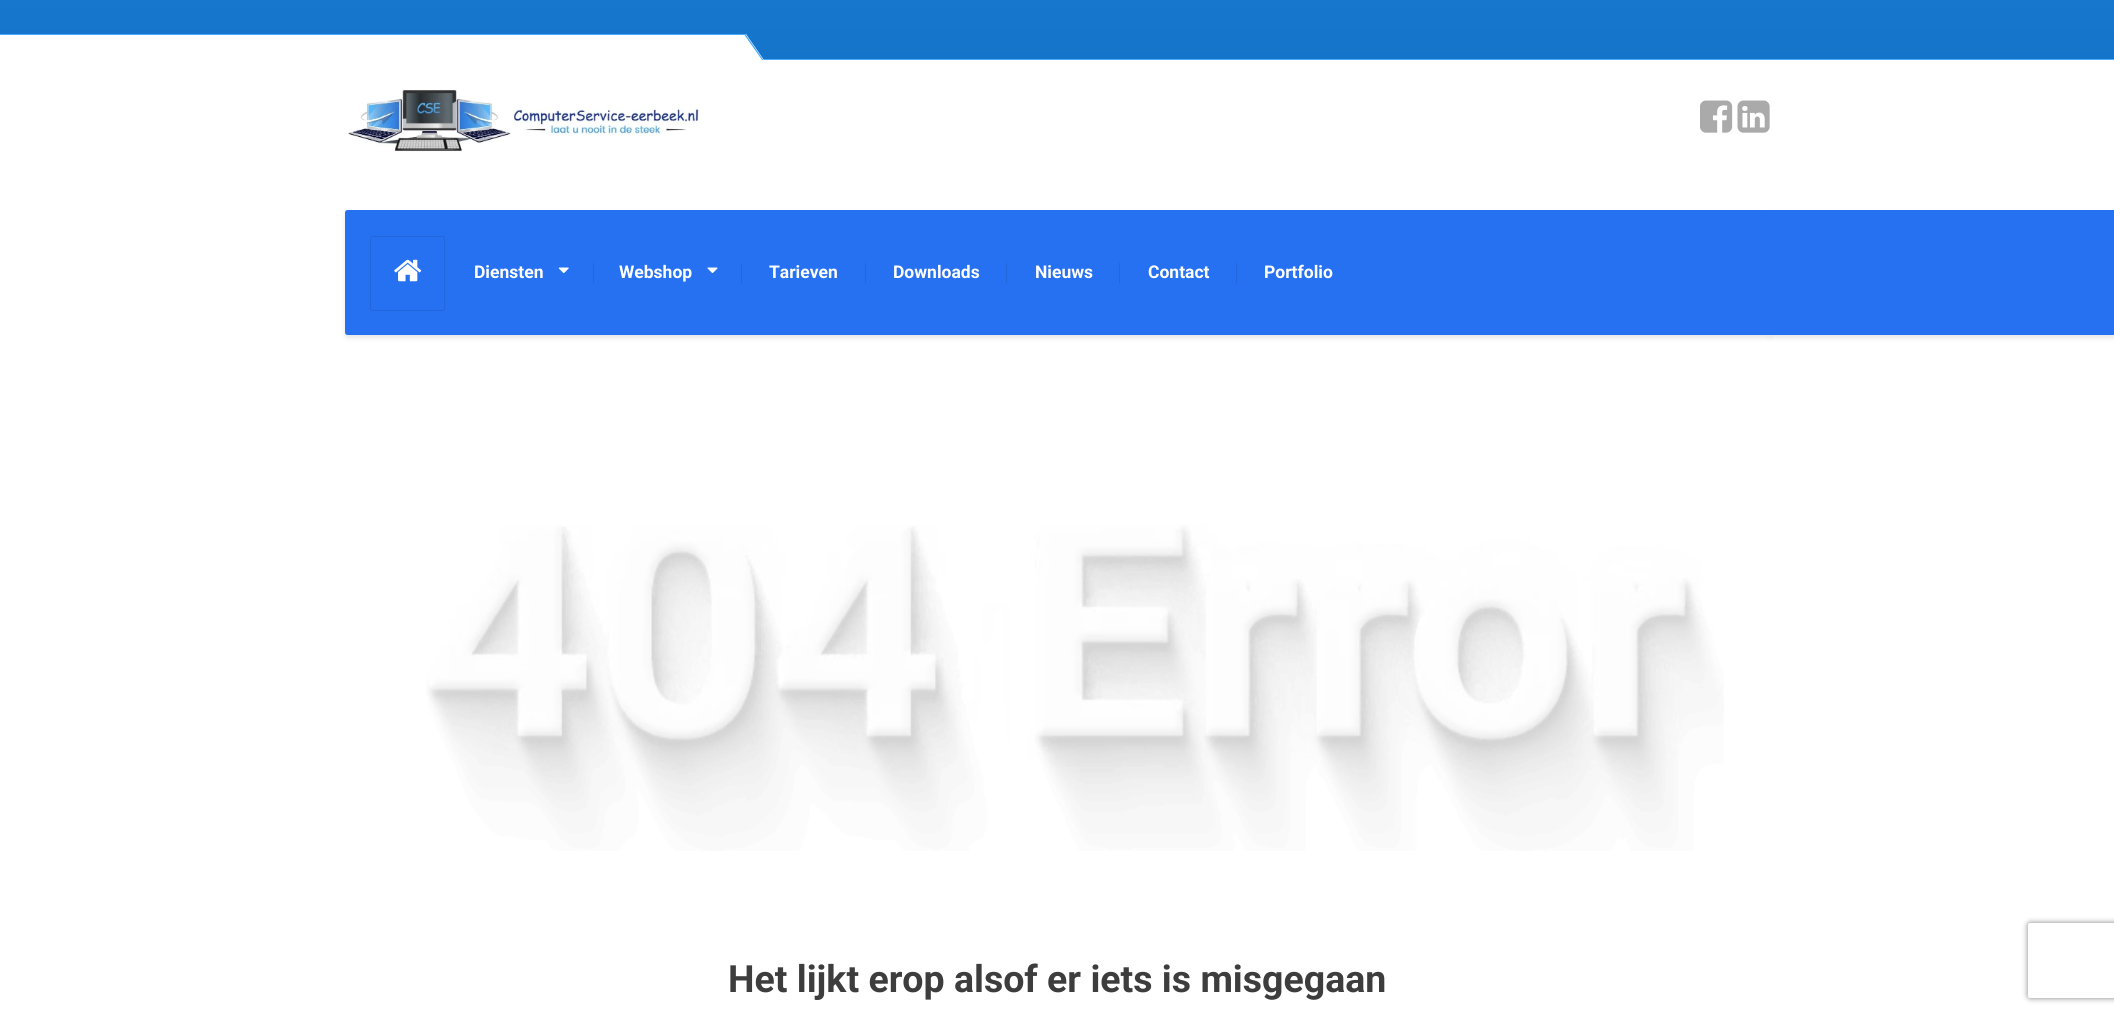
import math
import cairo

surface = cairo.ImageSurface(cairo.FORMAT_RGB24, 2114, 1014)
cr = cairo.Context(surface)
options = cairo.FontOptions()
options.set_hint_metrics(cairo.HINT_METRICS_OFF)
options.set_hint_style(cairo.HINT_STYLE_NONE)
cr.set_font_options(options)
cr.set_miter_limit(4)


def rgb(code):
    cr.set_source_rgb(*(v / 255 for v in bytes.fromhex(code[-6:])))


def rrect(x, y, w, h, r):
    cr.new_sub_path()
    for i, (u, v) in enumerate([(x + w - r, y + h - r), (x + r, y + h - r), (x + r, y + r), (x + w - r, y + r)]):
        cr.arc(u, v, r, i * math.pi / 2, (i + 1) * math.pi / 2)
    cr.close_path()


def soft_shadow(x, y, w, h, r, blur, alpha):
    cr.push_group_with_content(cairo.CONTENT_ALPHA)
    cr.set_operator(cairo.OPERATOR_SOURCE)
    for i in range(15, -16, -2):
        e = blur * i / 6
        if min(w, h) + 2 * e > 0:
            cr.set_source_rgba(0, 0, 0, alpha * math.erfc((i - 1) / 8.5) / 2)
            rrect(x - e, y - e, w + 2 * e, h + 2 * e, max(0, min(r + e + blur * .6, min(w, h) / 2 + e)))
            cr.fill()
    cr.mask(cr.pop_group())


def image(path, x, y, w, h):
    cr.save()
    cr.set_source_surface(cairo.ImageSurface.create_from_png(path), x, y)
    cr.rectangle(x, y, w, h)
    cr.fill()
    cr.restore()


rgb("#ffffff")
cr.paint()
gradient = cairo.LinearGradient(1058, 0, 1058, 59)
gradient.add_color_stop_rgba(0, 0.086, 0.467, 0.8, 1)
gradient.add_color_stop_rgba(1, 0.075, 0.455, 0.788, 1)
cr.set_source(gradient)
cr.rectangle(0, 0, 2114, 59)
cr.fill()
for x, y, w, h, color in [
    (763, 59, 1351, 1, "#49aaff"),
    (0, 35, 745, 24, "#ffffff"),
    (0, 34, 745, 1, "#49aaff"),
]:
    rgb(color)
    cr.rectangle(x, y, w, h)
    cr.fill()
rgb("#ffffff")
cr.new_path()
cr.move_to(766, 63)
cr.line_to(737, 83)
cr.line_to(717, 54)
cr.line_to(746, 34)
cr.close_path()
cr.fill()
rgb("#49aaff")
cr.new_path()
cr.move_to(765.5, 63)
cr.line_to(764.5, 63.5)
cr.line_to(744.5, 35)
cr.line_to(745.5, 34)
cr.close_path()
cr.fill()
rgb("#ffffff")
cr.rectangle(762, 60, 4, 4)
cr.fill()
image("img/1.png", 348, 89, 351, 63)
image("img/2.png", 1700, 100, 33, 33)
image("img/3.png", 1737, 100, 33, 33)
rgb("#000000")
soft_shadow(345, 213, 1425, 125, 2.5, 2.5, 0.1)
rgb("#2671f2")
rrect(345, 210, 1425, 125, 2.5)
cr.fill()
rrect(370.5, 236.5, 74, 74, 2)
rgb("#2266da")
cr.set_line_width(1)
cr.stroke()
image("img/4.png", 394, 259, 28, 23)
cr.rectangle(593, 263, 1, 20)
cr.fill()
image("img/5.png", 558, 267, 11, 7)
cr.rectangle(741, 263, 1, 20)
cr.fill()
image("img/6.png", 707, 267, 11, 7)
for x, y, w, h, color in [
    (865, 263, 1, 20, "#2266da"),
    (1006, 263, 1, 20, "#2266da"),
    (1119, 263, 1, 20, "#2266da"),
    (1236, 263, 1, 20, "#2266da"),
]:
    rgb(color)
    cr.rectangle(x, y, w, h)
    cr.fill()
rgb("#000000")
soft_shadow(1770, 213, 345, 125, 0, 2.5, 0.1)
rgb("#2671f2")
cr.rectangle(1767, 210, 347, 125)
cr.fill()
image("img/7.png", 426, 525, 1298, 326)
cr.save()
cr.set_fill_rule(cairo.FILL_RULE_EVEN_ODD)
cr.new_path()
cr.move_to(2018, 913)
cr.line_to(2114, 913)
cr.line_to(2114, 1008)
cr.line_to(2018, 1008)
cr.close_path()
cr.move_to(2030.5, 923)
cr.line_to(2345.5, 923)
cr.curve_to(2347, 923, 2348, 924, 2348, 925.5)
cr.line_to(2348, 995.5)
cr.curve_to(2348, 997, 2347, 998, 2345.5, 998)
cr.line_to(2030.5, 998)
cr.curve_to(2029, 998, 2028, 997, 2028, 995.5)
cr.line_to(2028, 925.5)
cr.curve_to(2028, 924, 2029, 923, 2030.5, 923)
cr.close_path()
cr.clip()
rgb("#808080")
soft_shadow(2028, 923, 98, 75, 2.5, 3, 1)
cr.restore()
cr.select_font_face("Roboto", cairo.FONT_SLANT_NORMAL, cairo.FONT_WEIGHT_BOLD)
cr.set_font_size(17.5)
rgb("#ffffff")
for x, y, s in [
    (474, 278, "Diensten"),
    (619, 278, "Webshop"),
    (769, 278, "Tarieven"),
    (893, 278, "Downloads"),
    (1035, 278, "Nieuws"),
    (1148, 278, "Contact"),
    (1264, 278, "Portfolio"),
]:
    cr.move_to(x, y)
    cr.show_text(s)
cr.set_font_size(37.5)
rgb("#3d3d3d")
cr.move_to(728, 992)
cr.show_text("Het lijkt erop alsof er iets is misgegaan")
surface.write_to_png("page.png")
